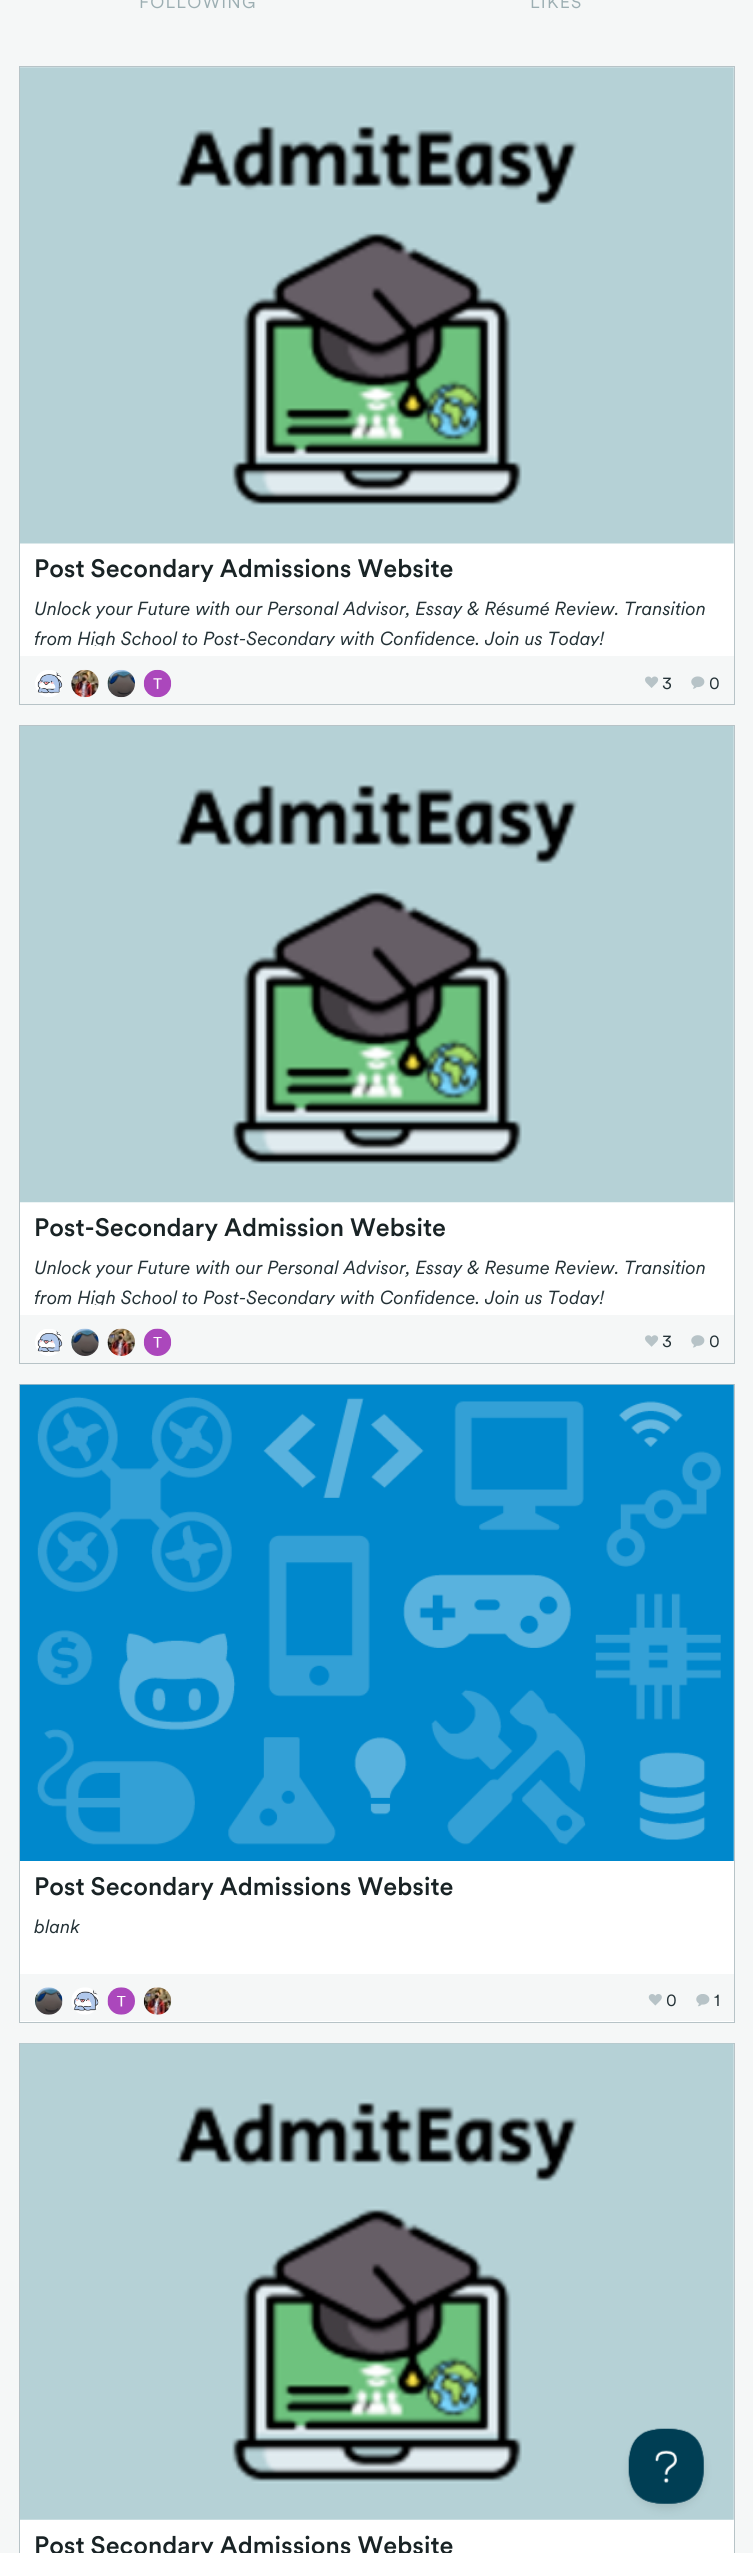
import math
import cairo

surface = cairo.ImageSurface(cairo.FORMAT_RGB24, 753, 2553)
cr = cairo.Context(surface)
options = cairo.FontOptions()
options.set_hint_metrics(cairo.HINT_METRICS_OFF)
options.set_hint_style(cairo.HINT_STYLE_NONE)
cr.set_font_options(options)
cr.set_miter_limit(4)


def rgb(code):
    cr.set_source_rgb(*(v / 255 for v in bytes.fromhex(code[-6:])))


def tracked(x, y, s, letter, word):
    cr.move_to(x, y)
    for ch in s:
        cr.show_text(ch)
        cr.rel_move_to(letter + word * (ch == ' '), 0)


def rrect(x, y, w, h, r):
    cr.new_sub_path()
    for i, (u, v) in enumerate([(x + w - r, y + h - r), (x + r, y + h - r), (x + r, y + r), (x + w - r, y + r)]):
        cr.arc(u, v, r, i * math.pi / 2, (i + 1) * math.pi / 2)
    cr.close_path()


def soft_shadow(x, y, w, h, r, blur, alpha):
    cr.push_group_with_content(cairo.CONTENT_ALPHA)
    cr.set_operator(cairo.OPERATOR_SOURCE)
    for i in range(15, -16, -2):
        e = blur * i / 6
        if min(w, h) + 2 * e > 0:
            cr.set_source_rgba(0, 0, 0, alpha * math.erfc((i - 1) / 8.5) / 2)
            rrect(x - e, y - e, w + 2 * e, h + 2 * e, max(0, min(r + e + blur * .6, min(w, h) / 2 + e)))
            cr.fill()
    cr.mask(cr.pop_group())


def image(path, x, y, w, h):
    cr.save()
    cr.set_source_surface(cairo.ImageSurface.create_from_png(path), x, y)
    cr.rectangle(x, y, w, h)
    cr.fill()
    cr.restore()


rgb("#f5f7f7")
cr.paint()
rgb("#ffffff")
cr.rectangle(20, 67, 714, 589)
cr.fill()
cr.rectangle(19.5, 66.5, 715, 638)
rgb("#b7c3c7")
cr.set_line_width(1)
cr.stroke()
image("img/1.png", 20, 67, 714, 477)
image("img/2.png", 35, 670, 28, 27)
image("img/3.png", 71, 669, 28, 29)
image("img/4.png", 107, 669, 28, 29)
image("img/5.png", 143, 669, 29, 29)
image("img/6.png", 645, 676, 14, 12)
image("img/7.png", 691, 676, 14, 13)
rgb("#ffffff")
cr.rectangle(20, 726, 714, 589)
cr.fill()
cr.rectangle(19.5, 725.5, 715, 638)
rgb("#b7c3c7")
cr.stroke()
image("img/8.png", 20, 726, 714, 477)
image("img/9.png", 35, 1329, 28, 27)
image("img/10.png", 71, 1328, 28, 28)
image("img/11.png", 107, 1328, 28, 28)
image("img/12.png", 143, 1328, 29, 28)
image("img/13.png", 645, 1335, 14, 12)
image("img/14.png", 691, 1335, 14, 13)
rgb("#ffffff")
cr.rectangle(19.5, 1384.5, 715, 638)
cr.fill_preserve()
rgb("#b7c3c7")
cr.stroke()
image("img/15.png", 20, 1384, 714, 477)
rgb("#f5f7f7")
cr.rectangle(20, 1974, 714, 47)
cr.fill()
image("img/16.png", 35, 1987, 28, 28)
image("img/17.png", 71, 1987, 28, 28)
image("img/18.png", 107, 1987, 28, 28)
image("img/19.png", 143, 1987, 29, 28)
image("img/20.png", 648, 1994, 14, 12)
image("img/21.png", 696, 1994, 14, 13)
rgb("#ffffff")
cr.rectangle(19.5, 2043.5, 715, 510)
cr.fill_preserve()
rgb("#b7c3c7")
cr.stroke()
image("img/22.png", 20, 2043, 714, 477)
rgb("#000000")
soft_shadow(629, 2434, 75, 75, 37.5, 4.5, 0.1)
image("img/23.png", 628, 2428, 76, 76)
cr.select_font_face("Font")
cr.set_font_size(17.5)
rgb("#9caeb2")
tracked(139, 8, "FOLLOWING", 1.25, 0)
tracked(530, 8, "LIKES", 1.25, 0)
cr.select_font_face("Font Medium")
cr.set_font_size(25)
rgb("#192325")
cr.move_to(34, 577)
cr.show_text("Post Secondary Admissions Website")
cr.select_font_face("Font", cairo.FONT_SLANT_ITALIC)
cr.set_font_size(18.75)
rgb("#233136")
cr.move_to(34, 615)
cr.show_text("Unlock your Future with our Personal Advisor, Essay & Résumé Review. Transition")
cr.save()
cr.rectangle(34, 594, 686, 52)
cr.clip()
cr.move_to(34, 645)
cr.show_text("from High School to Post-Secondary with Confidence. Join us Today!")
cr.restore()
gradient = cairo.LinearGradient(595, 633, 720, 633)
gradient.add_color_stop_rgba(0, 1, 1, 1, 0)
gradient.add_color_stop_rgba(1, 1, 1, 1, 1)
cr.set_source(gradient)
cr.rectangle(598, 631, 6, 14)
cr.fill()
cr.select_font_face("Font")
cr.set_font_size(17.5)
rgb("#233136")
cr.move_to(662, 689)
cr.show_text("3")
cr.move_to(709, 689)
cr.show_text("0")
cr.select_font_face("Font Medium")
cr.set_font_size(25)
rgb("#192325")
cr.move_to(34, 1236)
cr.show_text("Post-Secondary Admission Website")
cr.select_font_face("Font", cairo.FONT_SLANT_ITALIC)
cr.set_font_size(18.75)
rgb("#233136")
cr.move_to(34, 1274)
cr.show_text("Unlock your Future with our Personal Advisor, Essay & Resume Review. Transition")
cr.save()
cr.rectangle(34, 1253, 686, 52)
cr.clip()
cr.move_to(34, 1304)
cr.show_text("from High School to Post-Secondary with Confidence. Join us Today!")
cr.restore()
gradient = cairo.LinearGradient(595, 1292, 720, 1292)
gradient.add_color_stop_rgba(0, 1, 1, 1, 0)
gradient.add_color_stop_rgba(1, 1, 1, 1, 1)
cr.set_source(gradient)
cr.rectangle(598, 1290, 6, 14)
cr.fill()
cr.select_font_face("Font")
cr.set_font_size(17.5)
rgb("#233136")
cr.move_to(662, 1347)
cr.show_text("3")
cr.move_to(709, 1347)
cr.show_text("0")
cr.select_font_face("Font Medium")
cr.set_font_size(25)
rgb("#192325")
cr.move_to(34, 1895)
cr.show_text("Post Secondary Admissions Website")
cr.select_font_face("Font", cairo.FONT_SLANT_ITALIC)
cr.set_font_size(18.75)
rgb("#233136")
cr.move_to(34, 1933)
cr.show_text("blank")
cr.select_font_face("Font")
cr.set_font_size(17.5)
cr.move_to(666, 2006)
cr.show_text("0")
cr.move_to(714, 2006)
cr.show_text("1")
cr.select_font_face("Font Medium")
cr.set_font_size(25)
rgb("#192325")
cr.move_to(34, 2554)
cr.show_text("Post Secondary Admissions Website")
surface.write_to_png("page.png")
